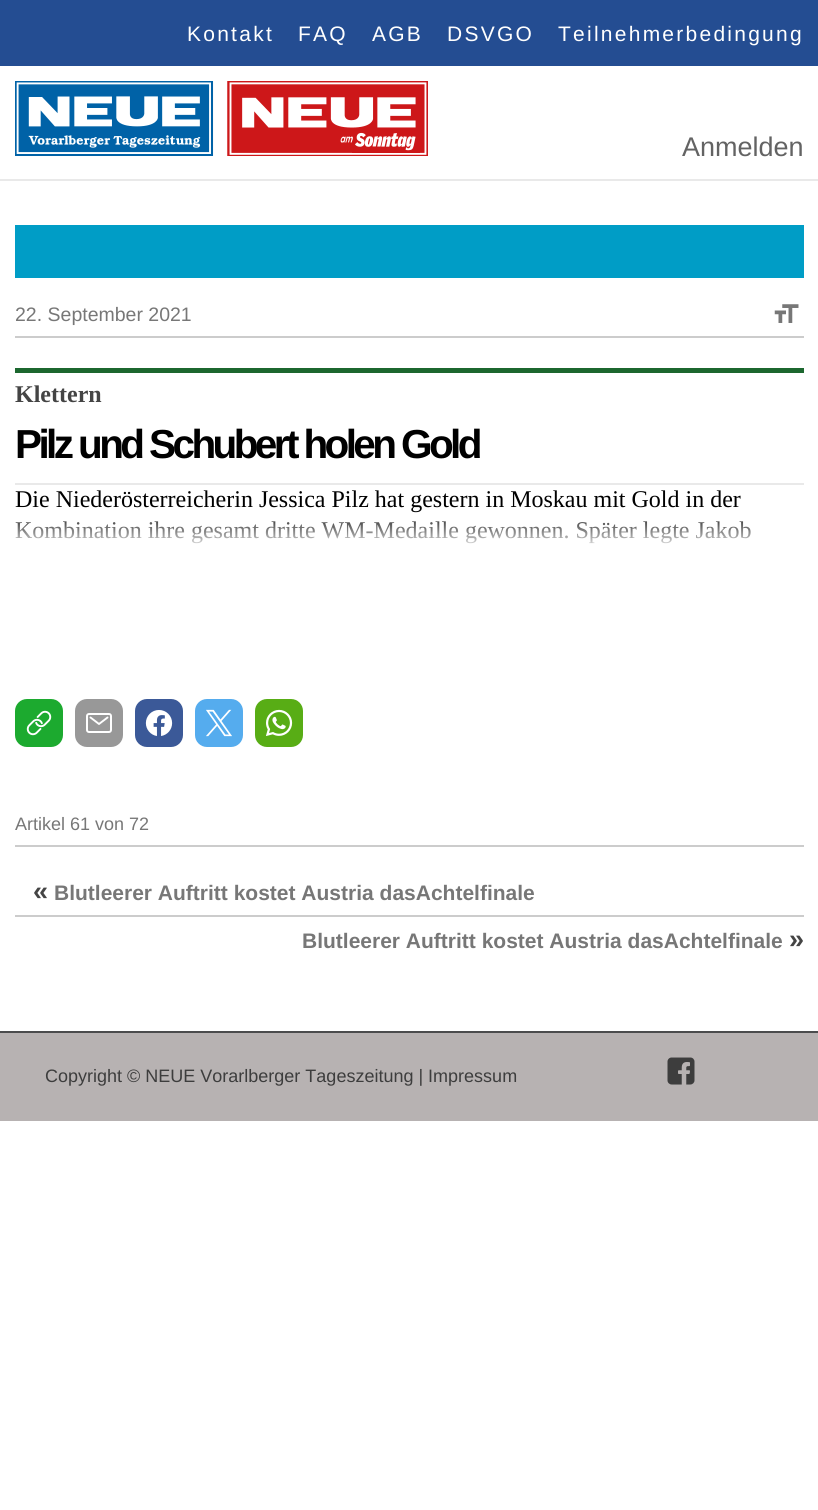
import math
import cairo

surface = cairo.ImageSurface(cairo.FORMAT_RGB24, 818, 1510)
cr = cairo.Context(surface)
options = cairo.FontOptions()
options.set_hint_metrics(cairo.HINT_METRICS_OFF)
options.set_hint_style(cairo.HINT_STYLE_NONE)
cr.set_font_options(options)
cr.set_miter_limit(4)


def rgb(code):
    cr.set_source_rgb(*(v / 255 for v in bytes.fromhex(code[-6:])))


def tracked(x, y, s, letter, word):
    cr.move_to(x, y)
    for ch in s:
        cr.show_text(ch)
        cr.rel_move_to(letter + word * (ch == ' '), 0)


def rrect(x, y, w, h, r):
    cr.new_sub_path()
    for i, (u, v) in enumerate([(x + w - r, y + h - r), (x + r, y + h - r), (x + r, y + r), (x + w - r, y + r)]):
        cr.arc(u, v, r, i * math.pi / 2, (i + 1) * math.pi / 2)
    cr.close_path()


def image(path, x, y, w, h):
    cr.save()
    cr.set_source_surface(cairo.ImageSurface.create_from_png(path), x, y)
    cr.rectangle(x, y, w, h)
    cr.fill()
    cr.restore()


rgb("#ffffff")
cr.paint()
rgb("#e9e9e9")
cr.rectangle(0, 179, 818, 2)
cr.fill()
rgb("#244d92")
cr.rectangle(0, 0, 818, 66)
cr.fill()
image("img/1.png", 15, 81, 413, 75)
rgb("#009dc6")
cr.rectangle(15, 225, 789, 53)
cr.fill()
rgb("#cccccc")
cr.rectangle(15, 336, 789, 2)
cr.fill()
image("img/2.png", 774, 304, 25, 19)
rgb("#e9e9e9")
cr.rectangle(15, 483, 789, 2)
cr.fill()
rgb("#1c672f")
cr.rectangle(15, 368, 789, 5)
cr.fill()
rgb("#1caa2f")
rrect(15, 699, 48, 48, 12)
cr.fill()
image("img/3.png", 26, 710, 26, 26)
rgb("#989898")
rrect(75, 699, 48, 48, 12)
cr.fill()
rrect(87, 714, 24, 18, 2)
rgb("#ffffff")
cr.stroke()
cr.new_path()
cr.move_to(90.5, 717.5)
cr.line_to(99, 724)
cr.line_to(107.5, 717.5)
cr.set_line_width(1.9)
cr.set_line_cap(cairo.LINE_CAP_ROUND)
cr.set_line_join(cairo.LINE_JOIN_ROUND)
cr.stroke()
rgb("#3b5998")
rrect(135, 699, 48, 48, 12)
cr.fill()
image("img/4.png", 145, 710, 28, 26)
rgb("#55acee")
rrect(195, 699, 48, 48, 12)
cr.fill()
image("img/5.png", 206, 709, 26, 28)
rgb("#58ad15")
rrect(255, 699, 48, 48, 12)
cr.fill()
image("img/6.png", 266, 709, 27, 27)
for x, y, w, h, color in [
    (15, 845, 789, 2, "#cccccc"),
    (15, 915, 789, 2, "#cccccc"),
    (0, 1033, 818, 88, "#b7b2b2"),
    (0, 1031, 818, 2, "#4b4c4d"),
]:
    rgb(color)
    cr.rectangle(x, y, w, h)
    cr.fill()
image("img/7.png", 667, 1057, 28, 28)
cr.select_font_face("Liberation Sans")
cr.set_font_size(21)
rgb("#ffffff")
for x, y, s in [
    (187, 41, "Kontakt"),
    (298, 41, "FAQ"),
    (372, 41, "AGB"),
    (447, 41, "DSVGO"),
    (558, 41, "Teilnehmerbedingung"),
]:
    tracked(x, y, s, 2.25, 0)
cr.set_font_size(27)
rgb("#636363")
cr.move_to(682, 156)
cr.show_text("Anmelden")
cr.set_font_size(19.5)
rgb("#777777")
cr.move_to(15, 321)
cr.show_text("22. September 2021")
cr.select_font_face("Liberation Serif", cairo.FONT_SLANT_NORMAL, cairo.FONT_WEIGHT_BOLD)
cr.set_font_size(24)
rgb("#444444")
cr.move_to(15, 402)
cr.show_text("Klettern")
cr.select_font_face("Liberation Sans", cairo.FONT_SLANT_NORMAL, cairo.FONT_WEIGHT_BOLD)
cr.set_font_size(40.5)
rgb("#000000")
tracked(15, 458, "Pilz und Schubert holen Gold", -3.6, 0)
cr.select_font_face("Liberation Serif")
cr.set_font_size(24)
cr.move_to(15, 507)
cr.show_text("Die Niederösterreicherin Jessica Pilz hat gestern in Moskau mit Gold in der")
cr.move_to(15, 538)
cr.show_text("Kombination ihre gesamt dritte WM-Medaille gewonnen. Später legte Jakob")
gradient = cairo.LinearGradient(410, 609, 410, 513)
gradient.add_color_stop_rgba(0.6, 1, 1, 1, 1)
gradient.add_color_stop_rgba(1, 1, 1, 1, 0.1)
cr.set_source(gradient)
cr.rectangle(15, 521, 736, 23)
cr.fill()
cr.select_font_face("Liberation Sans")
cr.set_font_size(18)
rgb("#777777")
cr.move_to(15, 830)
cr.show_text("Artikel 61 von 72")
cr.select_font_face("Liberation Sans", cairo.FONT_SLANT_NORMAL, cairo.FONT_WEIGHT_BOLD)
cr.set_font_size(27)
rgb("#444444")
cr.move_to(33, 900)
cr.show_text("«")
cr.set_font_size(21)
rgb("#777777")
cr.move_to(54, 900)
cr.show_text("Blutleerer Auftritt kostet Austria dasAchtelfinale")
cr.move_to(302, 948)
cr.show_text("Blutleerer Auftritt kostet Austria dasAchtelfinale")
cr.set_font_size(27)
rgb("#444444")
cr.move_to(789, 948)
cr.show_text("»")
cr.select_font_face("Liberation Sans")
cr.set_font_size(18)
rgb("#3d3d3d")
cr.move_to(45, 1082)
cr.show_text("Copyright © NEUE Vorarlberger Tageszeitung | Impressum")
surface.write_to_png("page.png")
